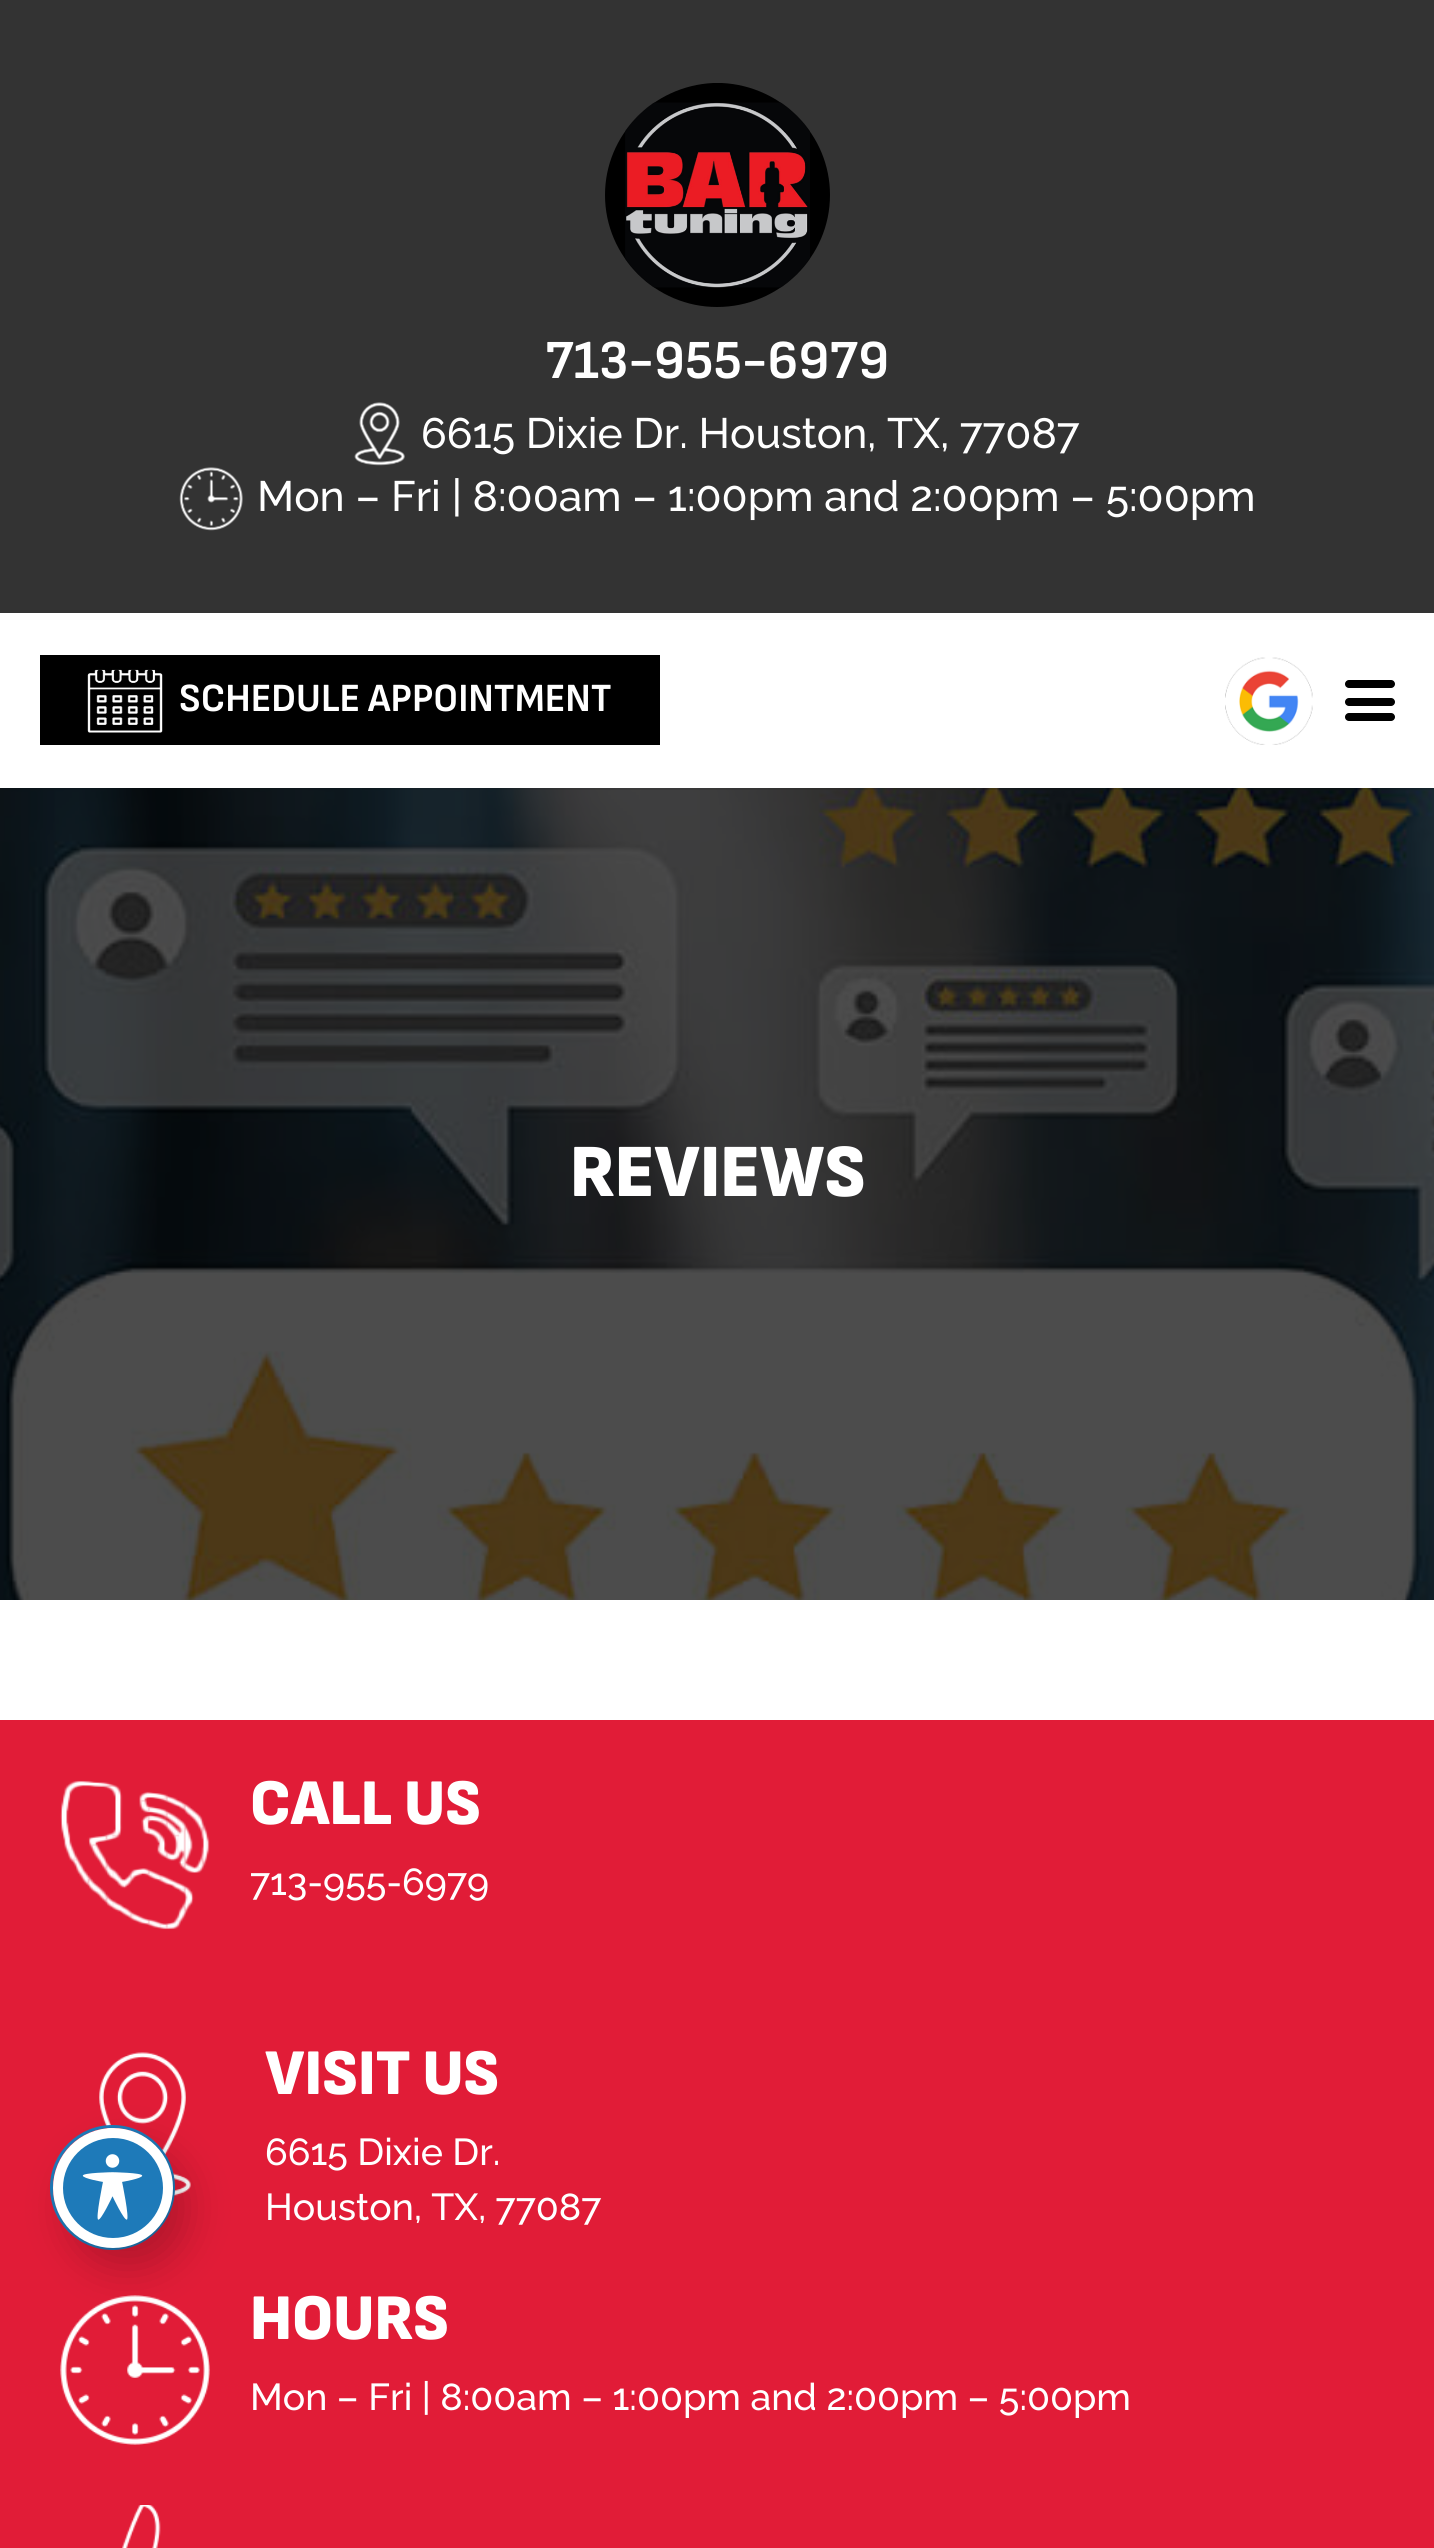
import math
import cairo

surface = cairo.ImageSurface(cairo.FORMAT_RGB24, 1434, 2548)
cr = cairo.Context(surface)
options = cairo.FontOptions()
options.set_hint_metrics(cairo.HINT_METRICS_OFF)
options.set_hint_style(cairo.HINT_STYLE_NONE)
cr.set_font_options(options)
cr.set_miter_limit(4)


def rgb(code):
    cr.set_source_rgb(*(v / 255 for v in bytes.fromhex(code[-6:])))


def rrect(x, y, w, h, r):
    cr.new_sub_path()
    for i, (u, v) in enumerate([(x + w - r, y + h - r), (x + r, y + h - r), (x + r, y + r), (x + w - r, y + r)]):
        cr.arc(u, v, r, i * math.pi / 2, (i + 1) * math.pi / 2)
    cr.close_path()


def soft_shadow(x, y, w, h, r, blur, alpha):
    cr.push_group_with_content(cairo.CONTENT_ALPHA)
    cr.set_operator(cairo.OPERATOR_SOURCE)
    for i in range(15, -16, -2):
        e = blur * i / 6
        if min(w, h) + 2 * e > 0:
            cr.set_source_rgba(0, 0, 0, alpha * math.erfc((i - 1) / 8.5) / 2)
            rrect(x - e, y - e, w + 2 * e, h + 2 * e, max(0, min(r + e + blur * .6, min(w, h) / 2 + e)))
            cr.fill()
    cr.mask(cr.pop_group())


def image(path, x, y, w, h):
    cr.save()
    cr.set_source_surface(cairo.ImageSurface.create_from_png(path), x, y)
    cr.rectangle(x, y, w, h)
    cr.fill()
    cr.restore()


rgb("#ffffff")
cr.paint()
rgb("#333333")
cr.rectangle(0, 0, 1434, 613)
cr.fill()
rgb("#000000")
cr.new_path()
cr.move_to(722, 83)
cr.curve_to(782, 86, 830, 135, 830, 195)
cr.curve_to(830, 257, 779, 307, 717, 307)
cr.curve_to(656, 307, 605, 257, 605, 195)
cr.curve_to(605, 135, 653, 86, 713, 83)
cr.close_path()
cr.fill()
image("img/1.png", 625, 102, 185, 186)
image("img/2.png", 354, 402, 51, 64)
image("img/3.png", 179, 467, 64, 64)
image("img/6.png", 0, 788, 1434, 812)
cr.set_source_rgba(0, 0, 0, 0.08)
cr.rectangle(362, 788, 1072, 2)
cr.fill()
rgb("#000000")
cr.rectangle(40, 655, 620, 90)
cr.fill()
image("img/4.png", 87, 669, 76, 64)
image("img/5.png", 1225, 657, 88, 88)
rrect(1345, 698, 50, 8, 4)
cr.fill()
rrect(1345, 680, 50, 8, 4)
cr.fill()
rrect(1345, 713, 50, 8, 4)
cr.fill()
rgb("#e11c37")
cr.rectangle(0, 1720, 1434, 828)
cr.fill()
image("img/9.png", 99, 2052, 92, 144)
cr.arc(112.5, 2187.5, 61, 0, 2 * math.pi)
rgb("#1e7ab9")
cr.set_line_width(3)
cr.stroke()
image("img/10.png", 60, 2295, 150, 150)
rgb("#000000")
soft_shadow(68, 2148, 120, 120, 60, 20, 0.2)
rgb("#1e7ab9")
cr.arc(113, 2188, 55, 0, 2 * math.pi)
cr.fill_preserve()
rgb("#ffffff")
cr.set_line_width(10)
cr.stroke()
image("img/7.png", 82, 2154, 61, 66)
image("img/8.png", 60, 1780, 150, 150)
image("img/11.png", 122, 2505, 39, 43)
cr.select_font_face("Sofia Sans Semi Condensed", cairo.FONT_SLANT_NORMAL, cairo.FONT_WEIGHT_BOLD)
cr.set_font_size(55)
cr.move_to(545, 378)
cr.show_text("713-955-6979")
cr.select_font_face("Raleway Thin")
cr.set_font_size(42.5)
cr.move_to(421, 448)
cr.show_text("6615 Dixie Dr. Houston, TX, 77087")
cr.move_to(257, 511)
cr.show_text("Mon – Fri | 8:00am – 1:00pm and 2:00pm – 5:00pm")
cr.select_font_face("Sofia Sans Semi Condensed", cairo.FONT_SLANT_NORMAL, cairo.FONT_WEIGHT_BOLD)
cr.set_font_size(40)
cr.move_to(179, 711)
cr.show_text("SCHEDULE APPOINTMENT")
cr.select_font_face("Sofia Sans Semi Condensed Black")
cr.set_font_size(75)
cr.move_to(570, 1196)
cr.show_text("REVIEWS")
cr.set_font_size(65)
cr.move_to(250, 1824)
cr.show_text("CALL US")
cr.select_font_face("Raleway Thin")
cr.set_font_size(37.5)
cr.move_to(250, 1895)
cr.show_text("713-955-6979")
cr.select_font_face("Sofia Sans Semi Condensed Black")
cr.set_font_size(65)
cr.move_to(265, 2094)
cr.show_text("VISIT US")
cr.select_font_face("Raleway Thin")
cr.set_font_size(37.5)
cr.move_to(265, 2165)
cr.show_text("6615 Dixie Dr.")
cr.move_to(265, 2220)
cr.show_text("Houston, TX, 77087")
cr.select_font_face("Sofia Sans Semi Condensed Black")
cr.set_font_size(65)
cr.move_to(250, 2339)
cr.show_text("HOURS")
cr.select_font_face("Raleway Thin")
cr.set_font_size(37.5)
cr.move_to(250, 2410)
cr.show_text("Mon – Fri | 8:00am – 1:00pm and 2:00pm – 5:00pm")
surface.write_to_png("page.png")
